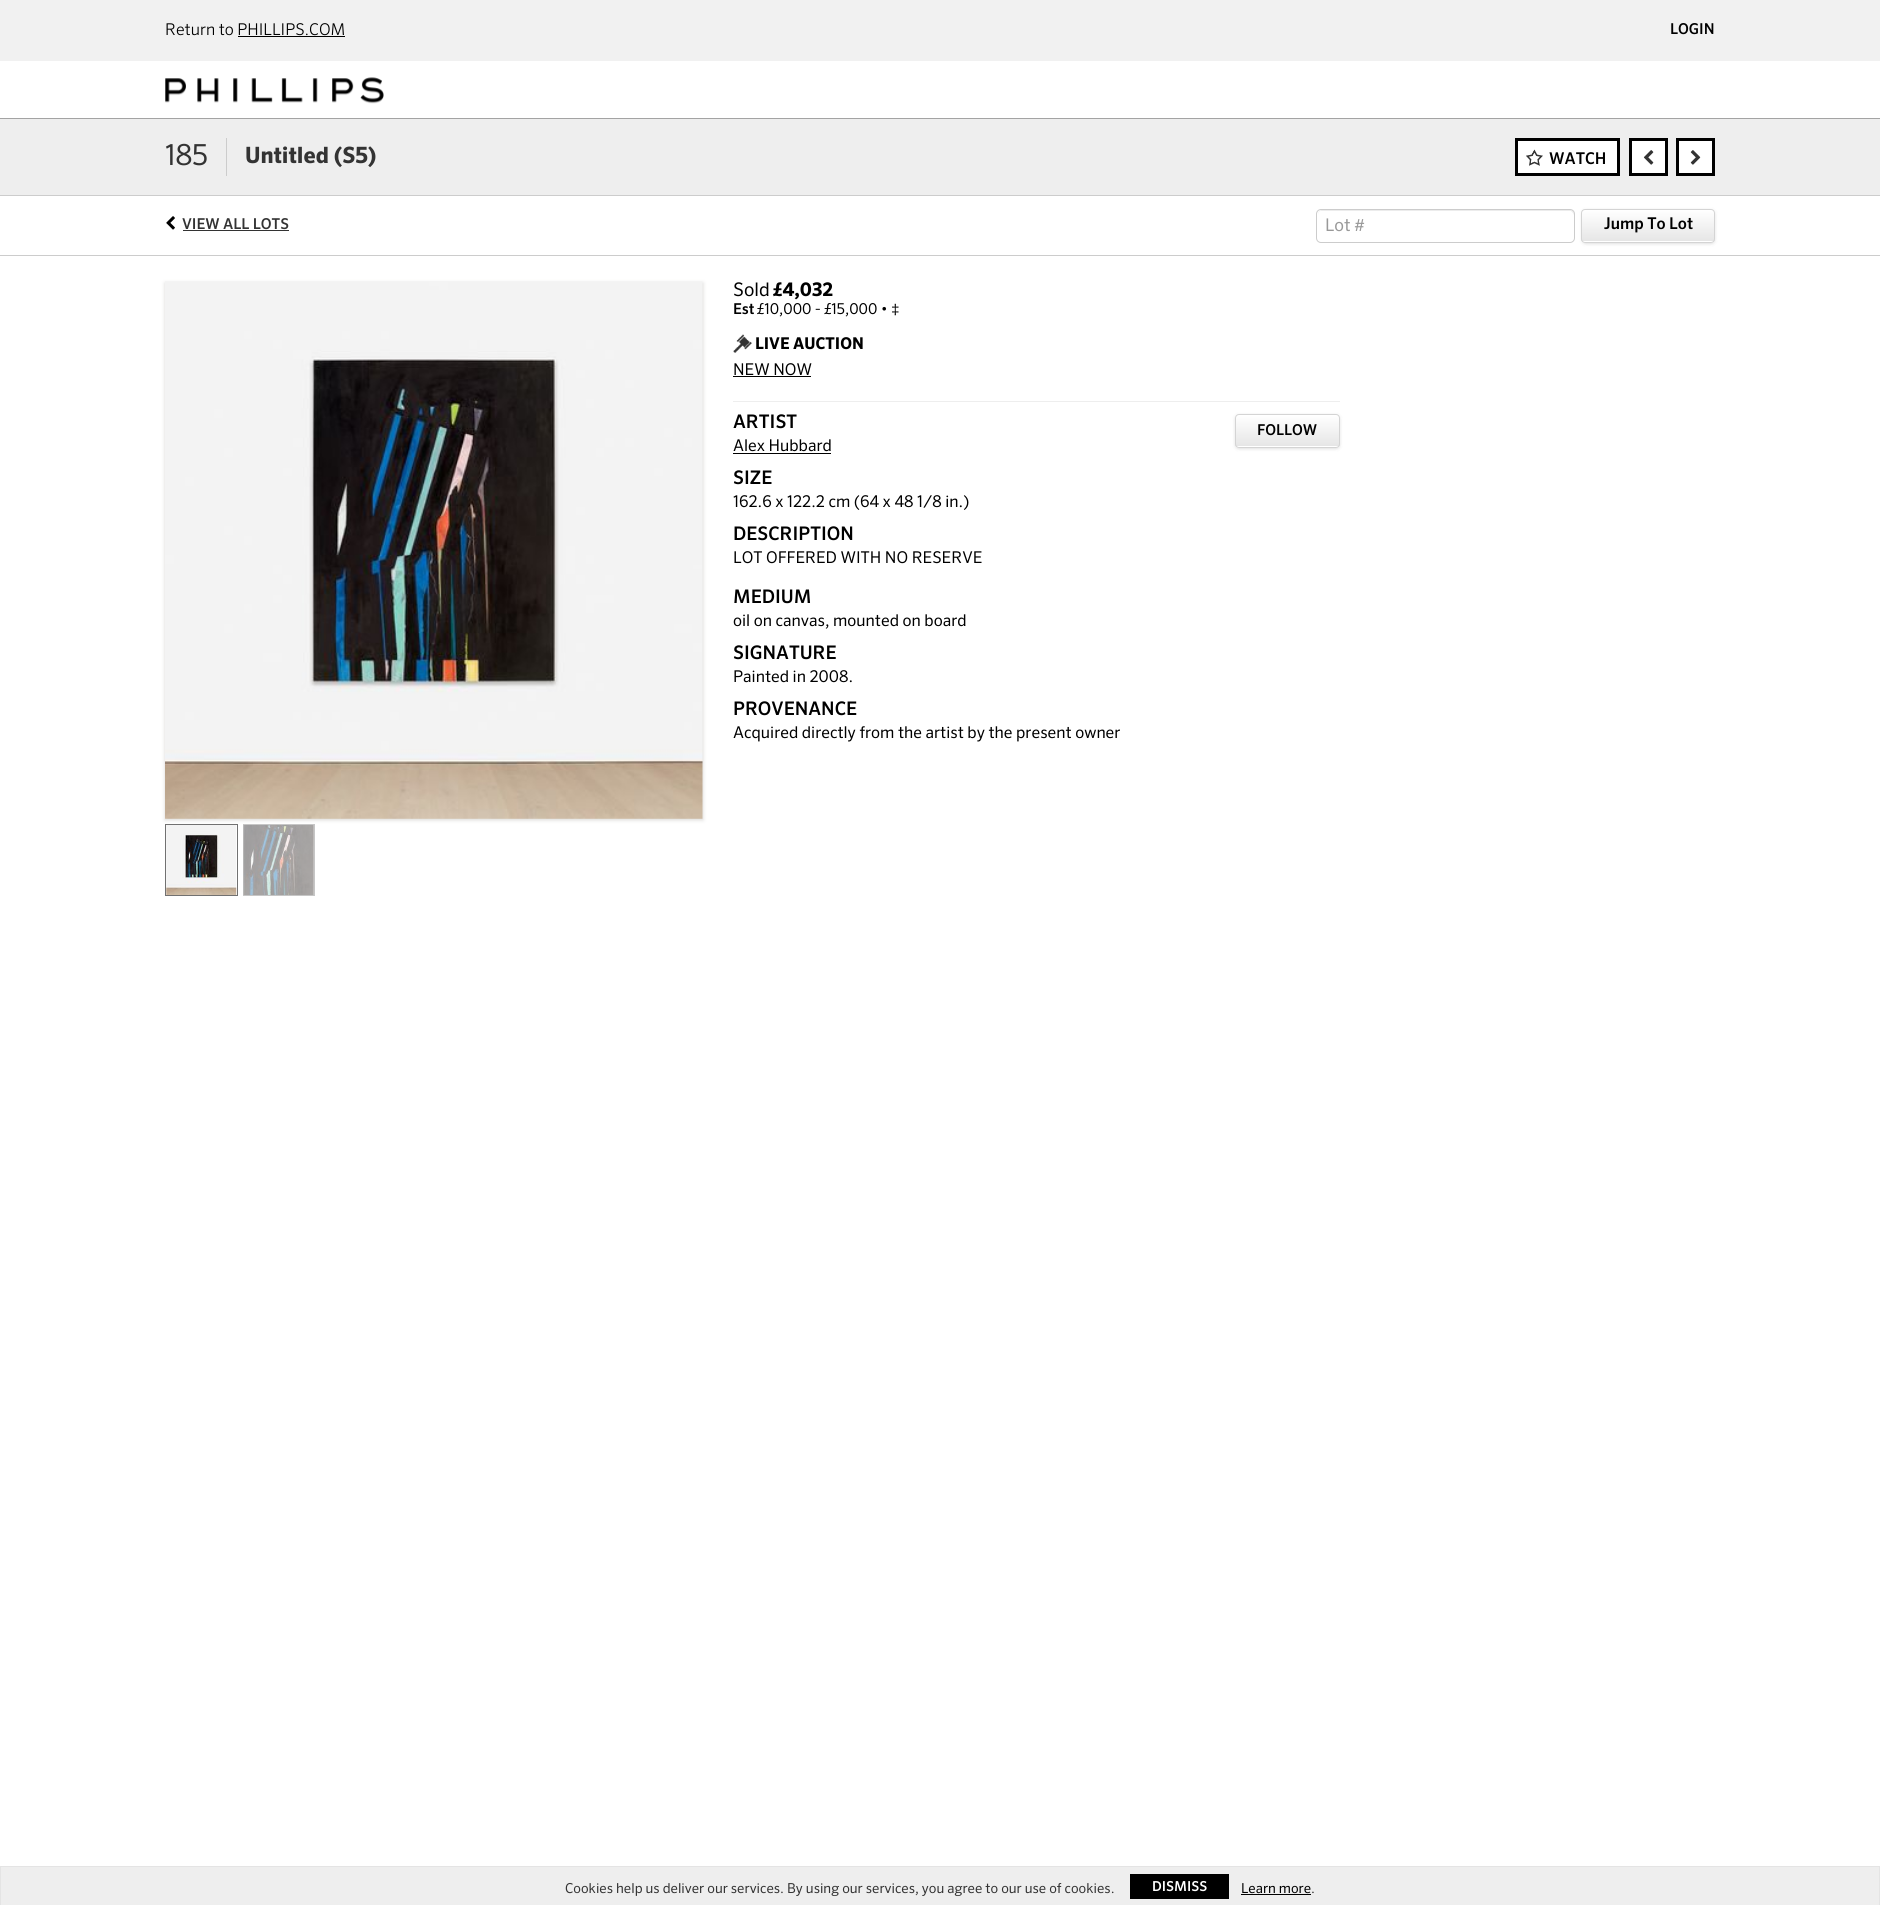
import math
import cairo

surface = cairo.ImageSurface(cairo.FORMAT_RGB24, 1880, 1905)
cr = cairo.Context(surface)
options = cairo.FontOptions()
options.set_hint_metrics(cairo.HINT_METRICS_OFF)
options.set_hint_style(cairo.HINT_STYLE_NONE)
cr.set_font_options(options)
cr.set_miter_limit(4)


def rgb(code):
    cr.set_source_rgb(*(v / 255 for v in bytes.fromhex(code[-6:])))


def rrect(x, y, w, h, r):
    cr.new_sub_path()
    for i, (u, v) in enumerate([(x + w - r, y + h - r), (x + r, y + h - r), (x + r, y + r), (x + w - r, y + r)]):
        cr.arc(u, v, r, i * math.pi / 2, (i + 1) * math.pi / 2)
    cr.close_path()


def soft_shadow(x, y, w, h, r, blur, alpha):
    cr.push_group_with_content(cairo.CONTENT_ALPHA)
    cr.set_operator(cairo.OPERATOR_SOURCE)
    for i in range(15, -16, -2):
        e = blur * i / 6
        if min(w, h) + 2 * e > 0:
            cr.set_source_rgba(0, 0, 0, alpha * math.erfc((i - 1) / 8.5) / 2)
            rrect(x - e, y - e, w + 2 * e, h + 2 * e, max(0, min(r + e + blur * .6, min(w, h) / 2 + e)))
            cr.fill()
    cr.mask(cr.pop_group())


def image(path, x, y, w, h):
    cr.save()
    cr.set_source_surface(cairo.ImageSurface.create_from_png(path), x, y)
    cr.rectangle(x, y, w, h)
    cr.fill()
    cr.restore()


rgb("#ffffff")
cr.paint()
for x, y, w, h, color in [
    (0, 118, 1880, 1, "#a3a3a3"),
    (0, 0, 1880, 61, "#f1f1f1"),
    (238, 36, 107, 1, "#000000"),
]:
    rgb(color)
    cr.rectangle(x, y, w, h)
    cr.fill()
image("img/1.png", 165, 77, 219, 27)
for x, y, w, h, color in [
    (0, 119, 1880, 76, "#eeeeee"),
    (0, 195, 1880, 1, "#cccccc"),
    (226, 138, 1, 38, "#cccccc"),
]:
    rgb(color)
    cr.rectangle(x, y, w, h)
    cr.fill()
rgb("#ffffff")
cr.rectangle(1516.5, 139.5, 102, 35)
cr.fill_preserve()
rgb("#000000")
cr.set_line_width(3)
cr.stroke()
image("img/2.png", 1526, 149, 17, 17)
rgb("#ffffff")
cr.rectangle(1630.5, 139.5, 36, 35)
cr.fill_preserve()
rgb("#000000")
cr.stroke()
image("img/3.png", 1643, 150, 11, 15)
rgb("#ffffff")
cr.rectangle(1677.5, 139.5, 36, 35)
cr.fill_preserve()
rgb("#000000")
cr.stroke()
image("img/4.png", 1690, 150, 11, 15)
image("img/5.png", 166, 216, 9, 14)
rgb("#333333")
cr.rectangle(183, 230, 106, 1)
cr.fill()
rgb("#ececec")
cr.new_path()
cr.move_to(1321, 211)
cr.line_to(1571, 211)
cr.line_to(1573, 213)
cr.line_to(1574, 215)
cr.line_to(1574, 214)
cr.curve_to(1574, 212, 1572, 210, 1570, 210)
cr.line_to(1322, 210)
cr.curve_to(1320, 210, 1318, 212, 1318, 214)
cr.line_to(1318, 215)
cr.curve_to(1318, 213, 1319, 211, 1321, 211)
cr.close_path()
cr.fill()
rrect(1316.5, 209.5, 258, 33, 4.5)
rgb("#cccccc")
cr.set_line_width(1)
cr.stroke()
rgb("#000000")
soft_shadow(1583, 211, 131, 32, 2.5, 2, 0.2)
cr.save()
rrect(1581, 209, 134, 34, 4)
cr.clip()
gradient = cairo.LinearGradient(1648, 210, 1648, 241)
gradient.add_color_stop_rgba(0, 1, 1, 1, 1)
gradient.add_color_stop_rgba(1, 0.902, 0.902, 0.902, 1)
cr.set_source(gradient)
cr.rectangle(1581, 210, 134, 31)
cr.fill()
gradient = cairo.LinearGradient(1648, 241, 1648, 273)
gradient.add_color_stop_rgba(0, 1, 1, 1, 1)
gradient.add_color_stop_rgba(1, 0.902, 0.902, 0.902, 1)
cr.set_source(gradient)
cr.rectangle(1581, 241, 134, 2)
cr.fill()
cr.restore()
rrect(1581.5, 209.5, 133, 33, 3.5)
rgb("#d4d4d4")
cr.stroke()
rgb("#cccccc")
cr.rectangle(0, 255, 1880, 1)
cr.fill()
rgb("#dad9d7")
soft_shadow(165, 283, 538, 537, 0, 2, 1)
image("img/6.png", 165, 281, 538, 538)
cr.rectangle(165.5, 824.5, 72, 71)
rgb("#717171")
cr.stroke()
cr.rectangle(243.5, 824.5, 71, 71)
rgb("#c6c6c6")
cr.stroke()
image("img/7.png", 166, 825, 71, 70)
image("img/8.png", 243, 825, 71, 70)
image("img/9.png", 733, 334, 19, 19)
rgb("#000000")
cr.rectangle(733, 376, 78, 1)
cr.fill()
rgb("#eeeeee")
cr.rectangle(733, 401, 607, 1)
cr.fill()
rgb("#000000")
soft_shadow(1236, 416, 103, 32, 2.5, 2, 0.2)
cr.save()
rrect(1235, 414, 105, 34, 4)
cr.clip()
gradient = cairo.LinearGradient(1288, 415, 1288, 446)
gradient.add_color_stop_rgba(0, 1, 1, 1, 1)
gradient.add_color_stop_rgba(1, 0.902, 0.902, 0.902, 1)
cr.set_source(gradient)
cr.rectangle(1235, 415, 105, 31)
cr.fill()
gradient = cairo.LinearGradient(1288, 446, 1288, 478)
gradient.add_color_stop_rgba(0, 1, 1, 1, 1)
gradient.add_color_stop_rgba(1, 0.902, 0.902, 0.902, 1)
cr.set_source(gradient)
cr.rectangle(1235, 446, 105, 2)
cr.fill()
cr.restore()
rrect(1235.5, 414.5, 104, 33, 3.5)
rgb("#d4d4d4")
cr.stroke()
for x, y, w, h, color in [
    (733, 453, 98, 1, "#000000"),
    (1, 1867, 1878, 38, "#eeeeee"),
    (0, 1866, 1880, 1, "#e4e4e4"),
    (1879, 1866, 1, 39, "#e4e4e4"),
    (0, 1866, 1, 39, "#e4e4e4"),
    (1130, 1874, 99, 25, "#000000"),
    (1241, 1894, 70, 1, "#000000"),
]:
    rgb(color)
    cr.rectangle(x, y, w, h)
    cr.fill()
cr.select_font_face("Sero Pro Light")
cr.set_font_size(16.25)
cr.move_to(165, 35)
cr.show_text("Return to PHILLIPS.COM")
cr.select_font_face("Sero Pro Medium")
cr.set_font_size(15)
cr.move_to(1670, 34)
cr.show_text("LOGIN")
cr.select_font_face("Sero Pro")
cr.set_font_size(29)
rgb("#333333")
cr.move_to(165, 165)
cr.show_text("185")
cr.select_font_face("Sero Pro", cairo.FONT_SLANT_NORMAL, cairo.FONT_WEIGHT_BOLD)
cr.set_font_size(22.5)
cr.move_to(245, 163)
cr.show_text("Untitled (S5)")
cr.select_font_face("Sero Pro Medium")
cr.set_font_size(16.25)
rgb("#000000")
cr.move_to(1549, 164)
cr.show_text("WATCH")
cr.set_font_size(15)
rgb("#333333")
cr.move_to(182, 229)
cr.show_text("VIEW ALL LOTS")
cr.select_font_face("Sero Pro")
cr.set_font_size(17.5)
rgb("#999999")
cr.move_to(1325, 231)
cr.show_text("Lot #")
cr.select_font_face("Sero Pro Medium")
cr.set_font_size(16.25)
rgb("#000000")
cr.move_to(1604, 229)
cr.show_text("Jump To Lot")
cr.select_font_face("Sero Pro")
cr.set_font_size(18.75)
cr.move_to(733, 296)
cr.show_text("Sold")
cr.select_font_face("Sero Pro", cairo.FONT_SLANT_NORMAL, cairo.FONT_WEIGHT_BOLD)
cr.move_to(773, 296)
cr.show_text("£4,032")
cr.select_font_face("Sero Pro Medium")
cr.set_font_size(15)
cr.move_to(733, 314)
cr.show_text("Est")
cr.select_font_face("Sero Pro")
cr.move_to(757, 314)
cr.show_text("£10,000 - £15,000 • ‡")
cr.select_font_face("Sero Pro", cairo.FONT_SLANT_NORMAL, cairo.FONT_WEIGHT_BOLD)
cr.set_font_size(16.25)
cr.move_to(755, 349)
cr.show_text("LIVE AUCTION")
cr.select_font_face("Sero Pro")
cr.move_to(733, 375)
cr.show_text("NEW NOW")
cr.select_font_face("Sero Pro Medium")
cr.set_font_size(18.75)
cr.move_to(733, 428)
cr.show_text("ARTIST")
cr.set_font_size(15)
cr.move_to(1257, 435)
cr.show_text("FOLLOW")
cr.select_font_face("Sero Pro")
cr.set_font_size(16.25)
cr.move_to(733, 451)
cr.show_text("Alex Hubbard")
cr.select_font_face("Sero Pro Medium")
cr.set_font_size(18.75)
cr.move_to(733, 484)
cr.show_text("SIZE")
cr.select_font_face("Sero Pro")
cr.set_font_size(16.25)
cr.move_to(733, 507)
cr.show_text("162.6 x 122.2 cm (64 x 48 1/8 in.)")
cr.select_font_face("Sero Pro Medium")
cr.set_font_size(18.75)
cr.move_to(733, 540)
cr.show_text("DESCRIPTION")
cr.select_font_face("Sero Pro")
cr.set_font_size(16.25)
cr.move_to(733, 563)
cr.show_text("LOT OFFERED WITH NO RESERVE")
cr.select_font_face("Sero Pro Medium")
cr.set_font_size(18.75)
cr.move_to(733, 603)
cr.show_text("MEDIUM")
cr.select_font_face("Sero Pro")
cr.set_font_size(16.25)
cr.move_to(733, 626)
cr.show_text("oil on canvas, mounted on board")
cr.select_font_face("Sero Pro Medium")
cr.set_font_size(18.75)
cr.move_to(733, 659)
cr.show_text("SIGNATURE")
cr.select_font_face("Sero Pro")
cr.set_font_size(16.25)
cr.move_to(733, 682)
cr.show_text("Painted in 2008.")
cr.select_font_face("Sero Pro Medium")
cr.set_font_size(18.75)
cr.move_to(733, 715)
cr.show_text("PROVENANCE")
cr.select_font_face("Sero Pro")
cr.set_font_size(16.25)
cr.move_to(733, 738)
cr.show_text("Acquired directly from the artist by the present owner")
cr.set_font_size(13.75)
rgb("#333333")
cr.move_to(565, 1893)
cr.show_text("Cookies help us deliver our services. By using our services, you agree to our use of cookies.")
cr.select_font_face("Sero Pro Medium")
rgb("#ffffff")
cr.move_to(1152, 1891)
cr.show_text("DISMISS")
cr.select_font_face("Sero Pro")
rgb("#000000")
cr.move_to(1241, 1893)
cr.show_text("Learn more")
rgb("#333333")
cr.move_to(1311, 1893)
cr.show_text(".")
surface.write_to_png("page.png")
